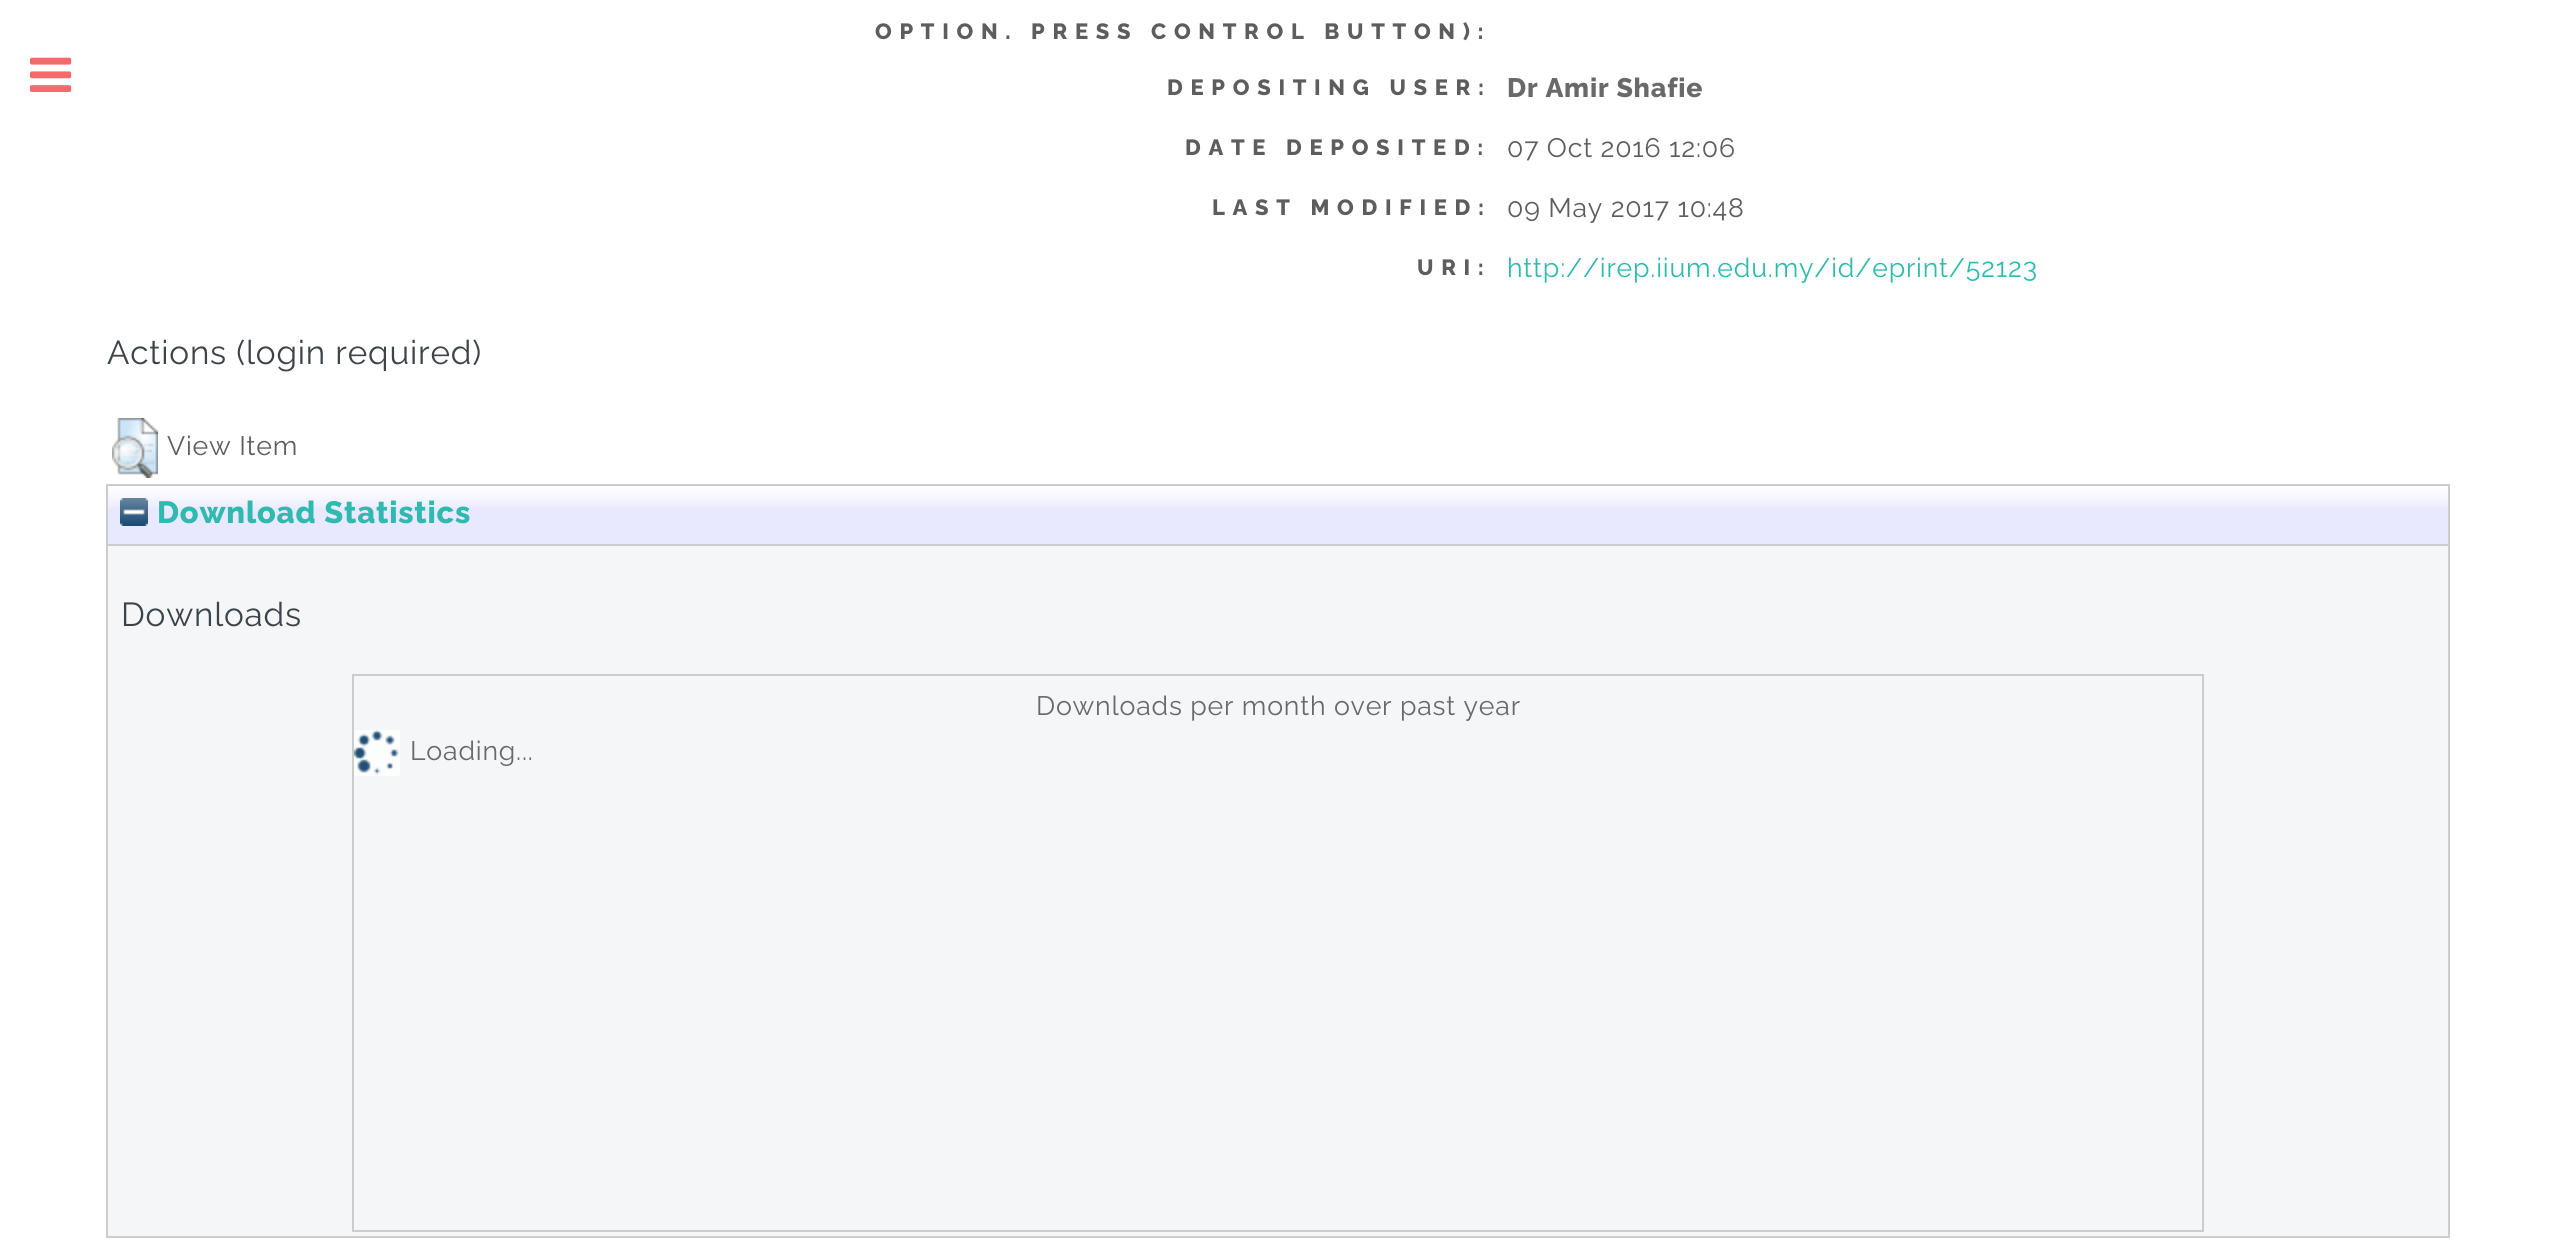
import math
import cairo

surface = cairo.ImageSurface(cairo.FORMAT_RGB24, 2556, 1260)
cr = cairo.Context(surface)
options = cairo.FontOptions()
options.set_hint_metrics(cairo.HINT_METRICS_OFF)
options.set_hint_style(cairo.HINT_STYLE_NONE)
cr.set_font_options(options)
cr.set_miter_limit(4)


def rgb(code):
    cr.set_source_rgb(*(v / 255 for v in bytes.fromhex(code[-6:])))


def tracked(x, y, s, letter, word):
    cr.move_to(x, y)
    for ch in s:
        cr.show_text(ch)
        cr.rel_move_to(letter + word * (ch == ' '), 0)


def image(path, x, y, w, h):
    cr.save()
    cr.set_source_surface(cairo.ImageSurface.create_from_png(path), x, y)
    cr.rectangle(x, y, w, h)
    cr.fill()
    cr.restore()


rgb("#ffffff")
cr.paint()
image("img/1.png", 30, 57, 42, 35)
image("img/2.png", 112, 418, 46, 60)
rgb("#e8e8ff")
cr.rectangle(108, 487, 2340, 57)
cr.fill()
image("img/3.png", 108, 486, 2340, 22)
cr.rectangle(107, 485, 2342, 60)
rgb("#cccccc")
cr.stroke()
image("img/4.png", 120, 498, 28, 28)
for x, y, w, h, color in [
    (108, 546, 2340, 690, "#f5f6f7"),
    (2448, 546, 2, 692, "#cccccc"),
    (106, 1236, 2344, 2, "#cccccc"),
    (106, 546, 2, 692, "#cccccc"),
]:
    rgb(color)
    cr.rectangle(x, y, w, h)
    cr.fill()
cr.rectangle(353, 675, 1850, 556)
cr.stroke()
image("img/5.png", 354, 730, 46, 46)
cr.select_font_face("Raleway ExtraBold")
cr.set_font_size(22)
rgb("#5d5d5d")
tracked(875, 39, "OPTION. PRESS CONTROL BUTTON):", 7.7, 0)
tracked(1167, 95, "DEPOSITING USER:", 7.7, 0)
cr.set_font_size(26.7)
rgb("#696969")
tracked(1507, 97, "Dr Amir Shafie", 0.8, 0)
cr.set_font_size(22)
rgb("#5d5d5d")
tracked(1185, 155, "DATE DEPOSITED:", 7.7, 0)
cr.select_font_face("Raleway")
cr.set_font_size(26.7)
tracked(1507, 157, "07 Oct 2016 12:06", 0.8, 0)
cr.select_font_face("Raleway ExtraBold")
cr.set_font_size(22)
tracked(1212, 215, "LAST MODIFIED:", 7.7, 0)
cr.select_font_face("Raleway")
cr.set_font_size(26.7)
tracked(1507, 217, "09 May 2017 10:48", 0.8, 0)
cr.select_font_face("Raleway ExtraBold")
cr.set_font_size(22)
tracked(1417, 275, "URI:", 7.7, 0)
cr.select_font_face("Raleway")
cr.set_font_size(26.7)
rgb("#2ebaae")
tracked(1507, 277, "http://irep.iium.edu.my/id/eprint/52123", 0.8, 0)
cr.set_font_size(33.25)
rgb("#3d4449")
tracked(107, 364, "Actions (login required)", 0.8, 0)
cr.set_font_size(26.7)
rgb("#5d5d5d")
tracked(167, 455, "View Item", 0.8, 0)
cr.select_font_face("Raleway ExtraBold")
cr.set_font_size(30.75)
rgb("#2ebaae")
tracked(157, 523, "Download Statistics", 0.8, 0)
cr.select_font_face("Raleway")
cr.set_font_size(33.25)
rgb("#3d4449")
tracked(121, 626, "Downloads", 0.8, 0)
cr.set_font_size(26.7)
rgb("#696969")
tracked(1036, 715, "Downloads per month over past year", 0.8, 0)
tracked(410, 760, "Loading...", 0.8, 0)
surface.write_to_png("page.png")
